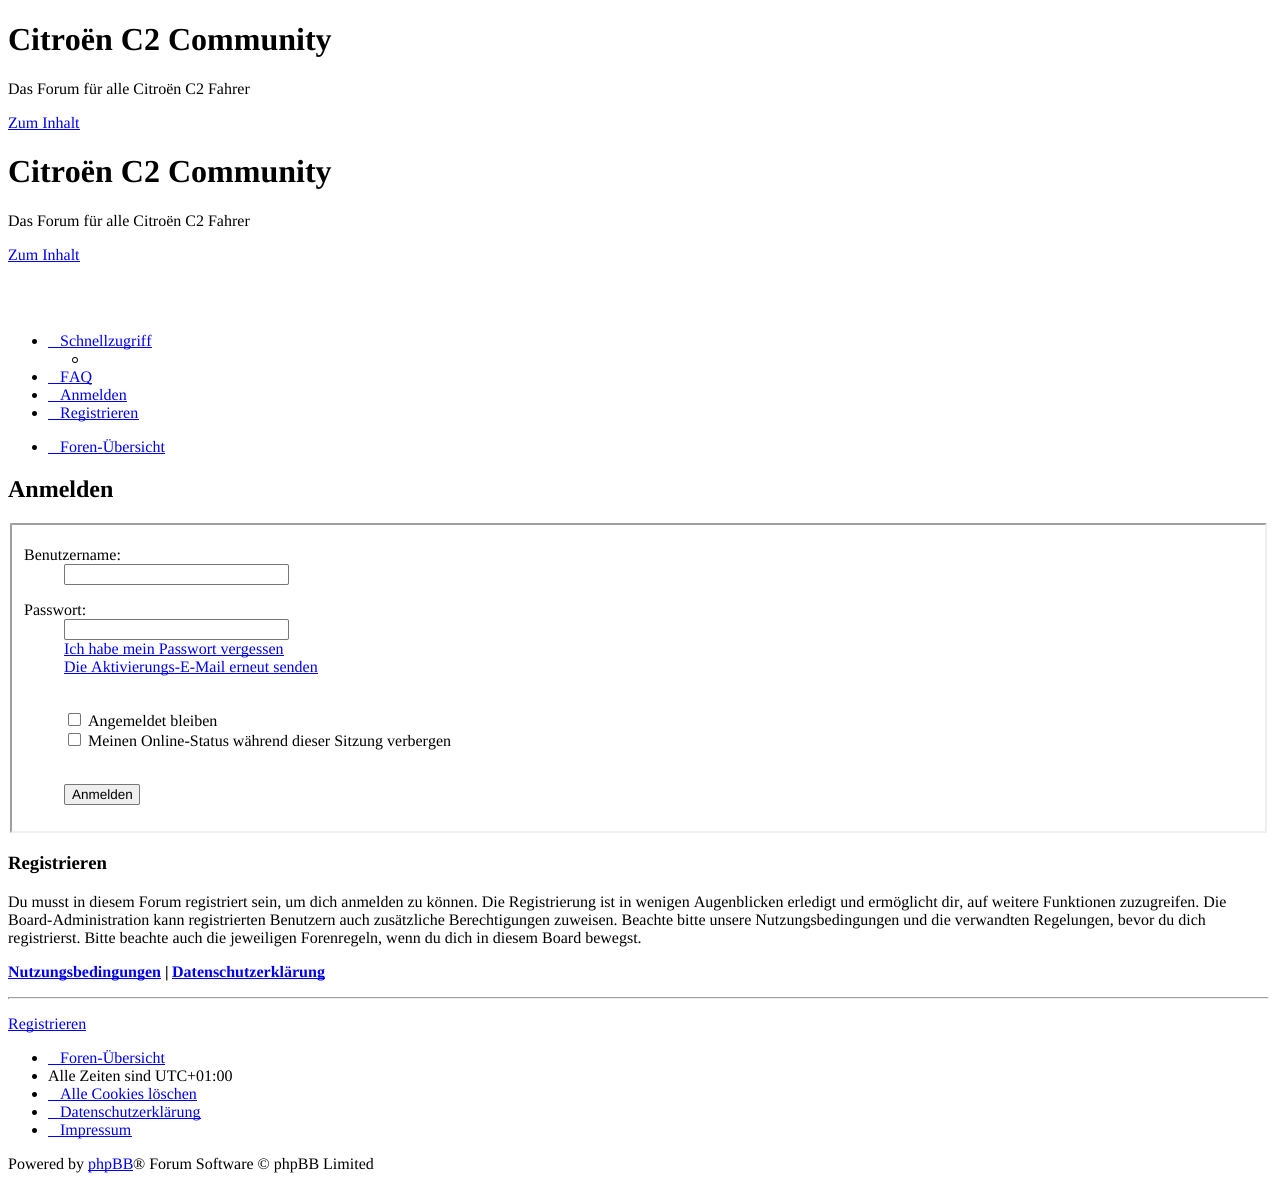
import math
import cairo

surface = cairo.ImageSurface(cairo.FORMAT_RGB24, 1277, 1191)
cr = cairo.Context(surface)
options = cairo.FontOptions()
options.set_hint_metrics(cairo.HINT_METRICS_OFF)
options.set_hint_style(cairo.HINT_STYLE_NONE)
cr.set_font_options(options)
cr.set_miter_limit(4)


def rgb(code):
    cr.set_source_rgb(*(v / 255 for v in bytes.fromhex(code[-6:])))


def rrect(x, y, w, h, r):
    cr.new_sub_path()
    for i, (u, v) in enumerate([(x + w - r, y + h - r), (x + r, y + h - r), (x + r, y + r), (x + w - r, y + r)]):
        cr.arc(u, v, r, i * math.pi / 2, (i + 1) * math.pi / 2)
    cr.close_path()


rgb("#ffffff")
cr.paint()
rgb("#0000ee")
cr.rectangle(8, 129, 72, 1)
cr.fill()
cr.rectangle(8, 261, 72, 1)
cr.fill()
rgb("#000000")
cr.arc(34.5, 341.5, 2.5, 0, 2 * math.pi)
cr.fill()
rgb("#0000ee")
cr.rectangle(48, 347, 104, 1)
cr.fill()
cr.arc(75, 360, 2.5, 0, 2 * math.pi)
rgb("#000000")
cr.set_line_width(1)
cr.stroke()
cr.arc(34.5, 377.5, 2.5, 0, 2 * math.pi)
cr.fill()
rgb("#0000ee")
cr.rectangle(48, 383, 44, 1)
cr.fill()
rgb("#000000")
cr.arc(34.5, 395.5, 2.5, 0, 2 * math.pi)
cr.fill()
rgb("#0000ee")
cr.rectangle(48, 401, 79, 1)
cr.fill()
rgb("#000000")
cr.arc(34.5, 413.5, 2.5, 0, 2 * math.pi)
cr.fill()
rgb("#0000ee")
cr.rectangle(48, 419, 91, 1)
cr.fill()
rgb("#000000")
cr.arc(34.5, 447.5, 2.5, 0, 2 * math.pi)
cr.fill()
rgb("#0000ee")
cr.rectangle(48, 453, 117, 1)
cr.fill()
rgb("#9f9f9f")
cr.new_path()
cr.move_to(10, 523)
cr.line_to(1267, 523)
cr.line_to(1265, 525)
cr.line_to(12, 525)
cr.close_path()
cr.fill()
rgb("#efefef")
cr.new_path()
cr.move_to(1267, 523)
cr.line_to(1267, 833)
cr.line_to(1265, 831)
cr.line_to(1265, 525)
cr.close_path()
cr.fill()
cr.new_path()
cr.move_to(1267, 833)
cr.line_to(10, 833)
cr.line_to(12, 831)
cr.line_to(1265, 831)
cr.close_path()
cr.fill()
rgb("#9f9f9f")
cr.new_path()
cr.move_to(10, 833)
cr.line_to(10, 523)
cr.line_to(12, 525)
cr.line_to(12, 831)
cr.close_path()
cr.fill()
rrect(64.5, 564.5, 224, 20, 1.5)
rgb("#767676")
cr.stroke()
rrect(64.5, 619.5, 224, 20, 1.5)
cr.stroke()
rgb("#0000ee")
cr.rectangle(64, 655, 220, 1)
cr.fill()
cr.rectangle(64, 673, 254, 1)
cr.fill()
rrect(68.5, 713.5, 12, 12, 1.5)
rgb("#767676")
cr.stroke()
rrect(68.5, 733.5, 12, 12, 1.5)
cr.stroke()
rgb("#efefef")
rrect(64.5, 784.5, 75, 20, 1.5)
cr.fill_preserve()
rgb("#767676")
cr.stroke()
for x, y, w, h, color in [
    (8, 978, 153, 1, "#0000ee"),
    (172, 978, 153, 1, "#0000ee"),
    (8, 997, 1261, 1, "#9f9f9f"),
    (1268, 997, 1, 2, "#eeeeee"),
    (8, 998, 1261, 1, "#eeeeee"),
    (8, 997, 1, 2, "#9f9f9f"),
    (8, 1030, 78, 1, "#0000ee"),
]:
    rgb(color)
    cr.rectangle(x, y, w, h)
    cr.fill()
rgb("#000000")
cr.arc(34.5, 1058.5, 2.5, 0, 2 * math.pi)
cr.fill()
rgb("#0000ee")
cr.rectangle(48, 1064, 117, 1)
cr.fill()
rgb("#000000")
cr.arc(34.5, 1076.5, 2.5, 0, 2 * math.pi)
cr.fill()
cr.arc(34.5, 1094.5, 2.5, 0, 2 * math.pi)
cr.fill()
rgb("#0000ee")
cr.rectangle(48, 1100, 149, 1)
cr.fill()
rgb("#000000")
cr.arc(34.5, 1112.5, 2.5, 0, 2 * math.pi)
cr.fill()
rgb("#0000ee")
cr.rectangle(48, 1118, 153, 1)
cr.fill()
rgb("#000000")
cr.arc(34.5, 1130.5, 2.5, 0, 2 * math.pi)
cr.fill()
rgb("#0000ee")
cr.rectangle(48, 1136, 84, 1)
cr.fill()
cr.rectangle(88, 1170, 45, 1)
cr.fill()
cr.select_font_face("Liberation Serif", cairo.FONT_SLANT_NORMAL, cairo.FONT_WEIGHT_BOLD)
cr.set_font_size(32)
rgb("#000000")
cr.move_to(8, 50)
cr.show_text("Citroën C2 Community")
cr.select_font_face("Liberation Serif")
cr.set_font_size(16)
cr.move_to(8, 94)
cr.show_text("Das Forum für alle Citroën C2 Fahrer")
rgb("#0000ee")
cr.move_to(8, 128)
cr.show_text("Zum Inhalt")
cr.select_font_face("Liberation Serif", cairo.FONT_SLANT_NORMAL, cairo.FONT_WEIGHT_BOLD)
cr.set_font_size(32)
rgb("#000000")
cr.move_to(8, 182)
cr.show_text("Citroën C2 Community")
cr.select_font_face("Liberation Serif")
cr.set_font_size(16)
cr.move_to(8, 226)
cr.show_text("Das Forum für alle Citroën C2 Fahrer")
rgb("#0000ee")
for x, y, s in [
    (8, 260, "Zum Inhalt"),
    (60, 346, "Schnellzugriff"),
    (60, 382, "FAQ"),
    (60, 400, "Anmelden"),
    (60, 418, "Registrieren"),
    (60, 452, "Foren-Übersicht"),
]:
    cr.move_to(x, y)
    cr.show_text(s)
cr.select_font_face("Liberation Serif", cairo.FONT_SLANT_NORMAL, cairo.FONT_WEIGHT_BOLD)
cr.set_font_size(24)
rgb("#000000")
cr.move_to(8, 497)
cr.show_text("Anmelden")
cr.select_font_face("Liberation Serif")
cr.set_font_size(16)
cr.move_to(24, 560)
cr.show_text("Benutzername:")
cr.move_to(24, 615)
cr.show_text("Passwort:")
rgb("#0000ee")
cr.move_to(64, 654)
cr.show_text("Ich habe mein Passwort vergessen")
cr.move_to(64, 672)
cr.show_text("Die Aktivierungs-E-Mail erneut senden")
rgb("#000000")
cr.move_to(88, 726)
cr.show_text("Angemeldet bleiben")
cr.move_to(88, 746)
cr.show_text("Meinen Online-Status während dieser Sitzung verbergen")
cr.select_font_face("Liberation Sans")
cr.set_font_size(13.5)
cr.move_to(72, 799)
cr.show_text("Anmelden")
cr.select_font_face("Liberation Serif", cairo.FONT_SLANT_NORMAL, cairo.FONT_WEIGHT_BOLD)
cr.set_font_size(18.75)
cr.move_to(8, 869)
cr.show_text("Registrieren")
cr.select_font_face("Liberation Serif")
cr.set_font_size(16)
for x, y, s in [
    (8, 907, "Du musst in diesem Forum registriert sein, um dich anmelden zu können. Die Registrierung ist in wenigen Augenblicken erledigt und ermöglicht dir, auf weitere Funktionen zuzugreifen. Die"),
    (8, 925, "Board-Administration kann registrierten Benutzern auch zusätzliche Berechtigungen zuweisen. Beachte bitte unsere Nutzungsbedingungen und die verwandten Regelungen, bevor du dich"),
    (8, 943, "registrierst. Bitte beachte auch die jeweiligen Forenregeln, wenn du dich in diesem Board bewegst."),
]:
    cr.move_to(x, y)
    cr.show_text(s)
cr.select_font_face("Liberation Serif", cairo.FONT_SLANT_NORMAL, cairo.FONT_WEIGHT_BOLD)
rgb("#0000ee")
cr.move_to(8, 977)
cr.show_text("Nutzungsbedingungen")
rgb("#000000")
cr.move_to(165, 977)
cr.show_text("|")
rgb("#0000ee")
cr.move_to(172, 977)
cr.show_text("Datenschutzerklärung")
cr.select_font_face("Liberation Serif")
cr.move_to(8, 1029)
cr.show_text("Registrieren")
cr.move_to(60, 1063)
cr.show_text("Foren-Übersicht")
rgb("#000000")
cr.move_to(48, 1081)
cr.show_text("Alle Zeiten sind UTC+01:00")
rgb("#0000ee")
for x, y, s in [
    (60, 1099, "Alle Cookies löschen"),
    (60, 1117, "Datenschutzerklärung"),
    (60, 1135, "Impressum"),
]:
    cr.move_to(x, y)
    cr.show_text(s)
rgb("#000000")
cr.move_to(8, 1169)
cr.show_text("Powered by")
rgb("#0000ee")
cr.move_to(88, 1169)
cr.show_text("phpBB")
rgb("#000000")
cr.move_to(133, 1169)
cr.show_text("® Forum Software © phpBB Limited")
surface.write_to_png("page.png")
